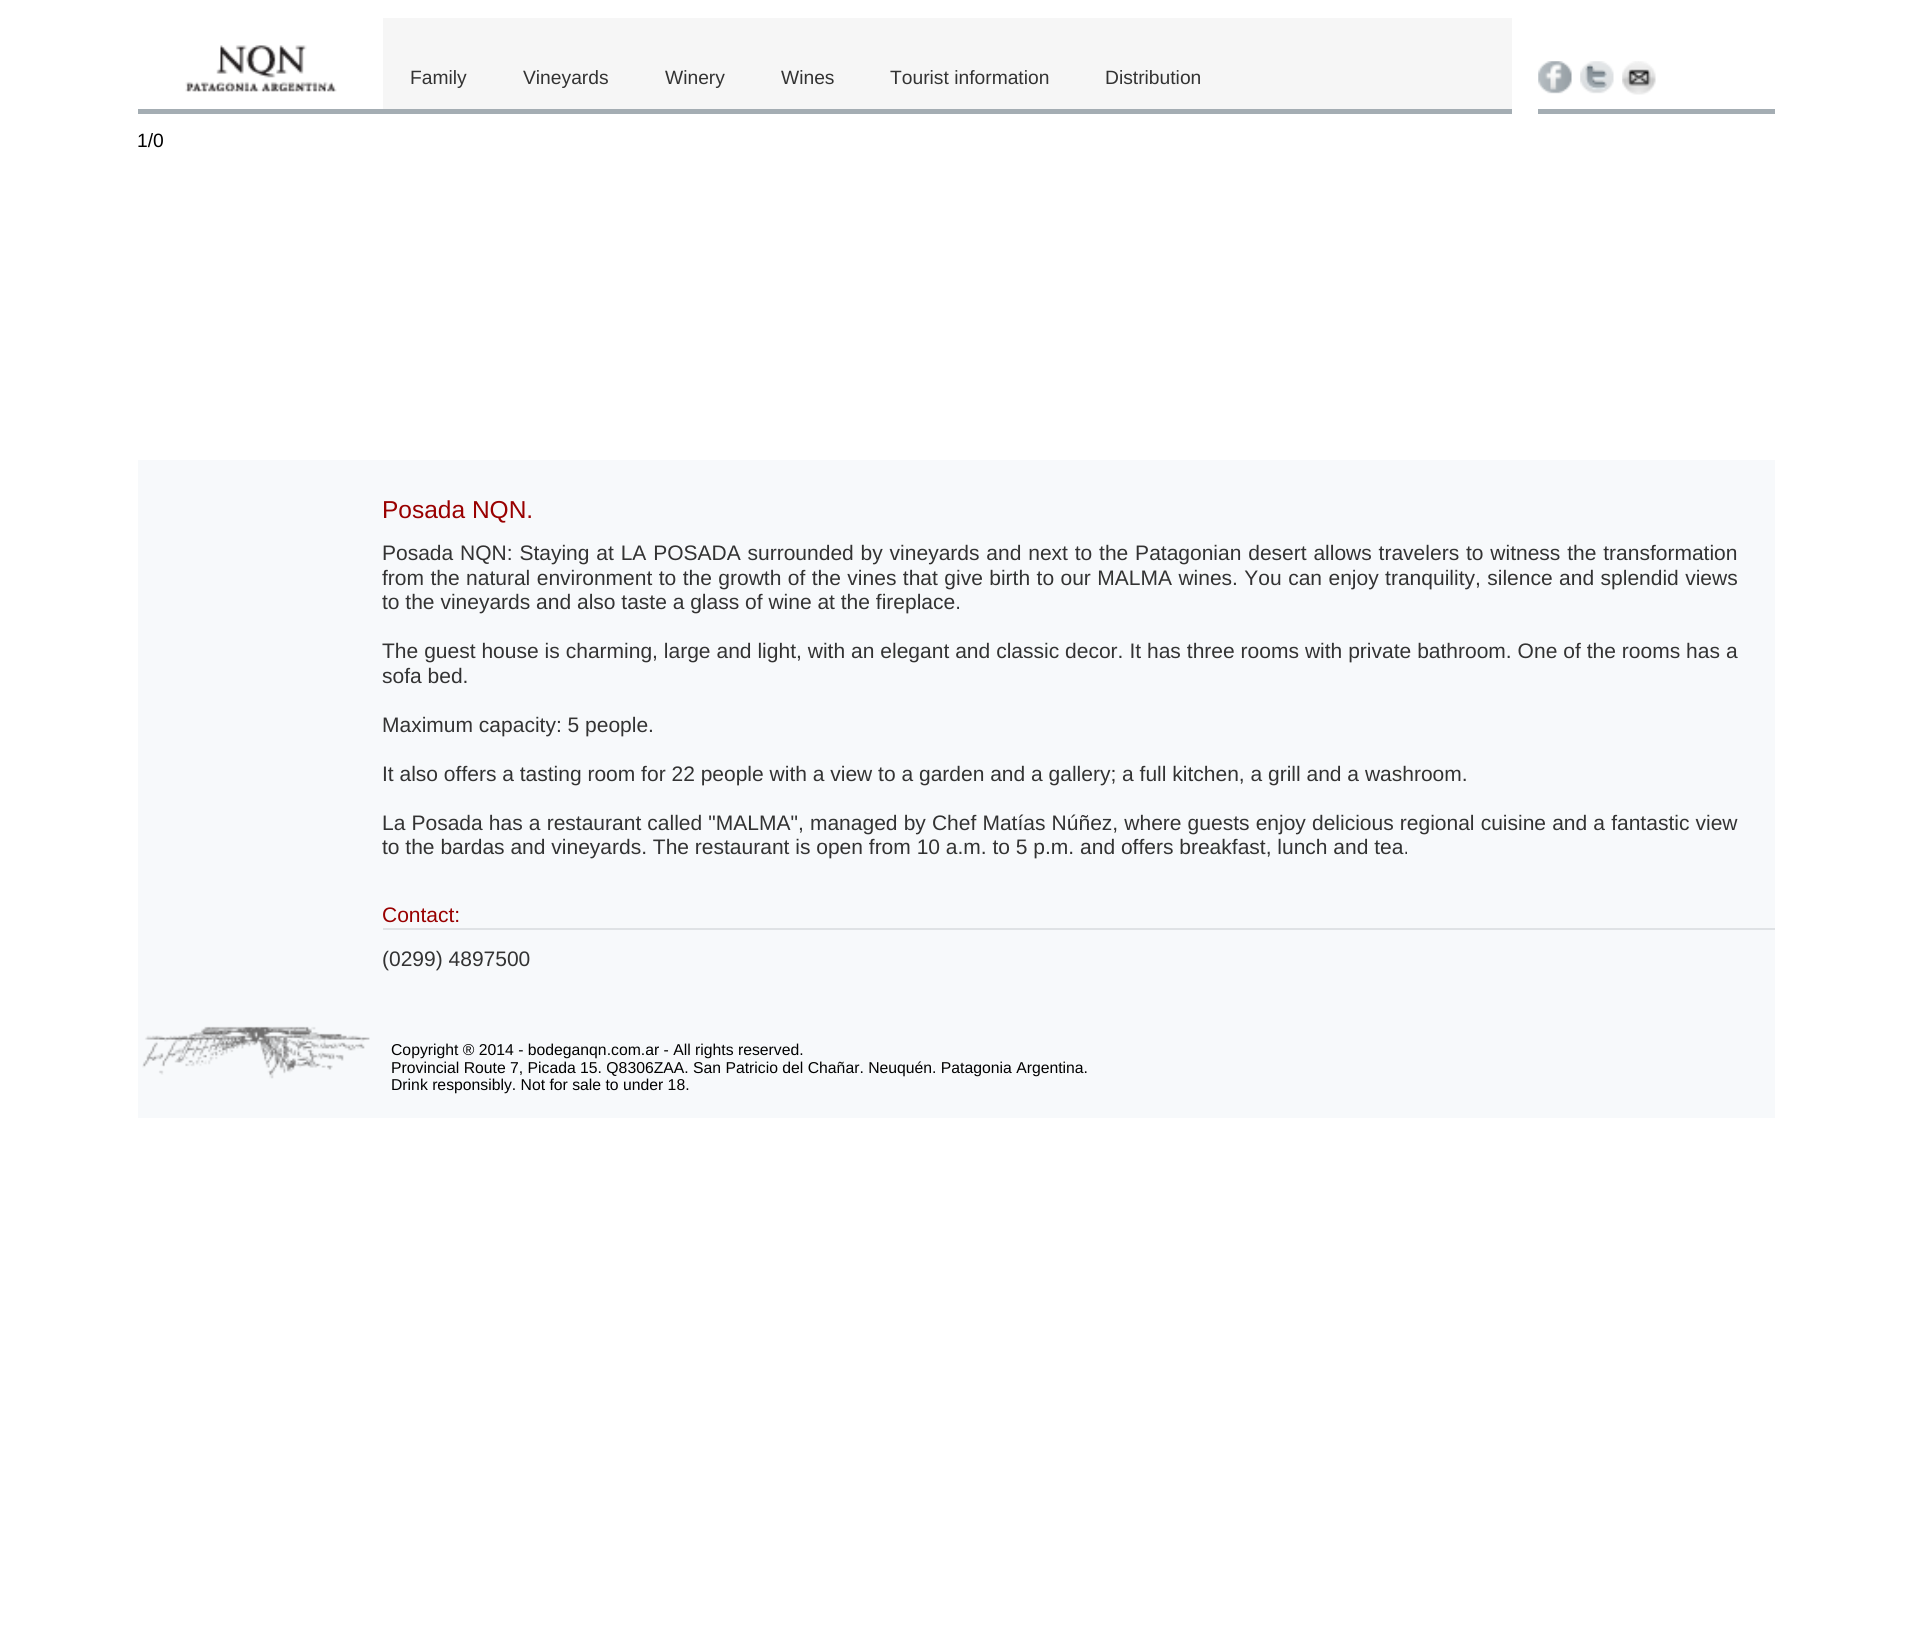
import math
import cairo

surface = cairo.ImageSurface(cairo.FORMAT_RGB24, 1910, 1644)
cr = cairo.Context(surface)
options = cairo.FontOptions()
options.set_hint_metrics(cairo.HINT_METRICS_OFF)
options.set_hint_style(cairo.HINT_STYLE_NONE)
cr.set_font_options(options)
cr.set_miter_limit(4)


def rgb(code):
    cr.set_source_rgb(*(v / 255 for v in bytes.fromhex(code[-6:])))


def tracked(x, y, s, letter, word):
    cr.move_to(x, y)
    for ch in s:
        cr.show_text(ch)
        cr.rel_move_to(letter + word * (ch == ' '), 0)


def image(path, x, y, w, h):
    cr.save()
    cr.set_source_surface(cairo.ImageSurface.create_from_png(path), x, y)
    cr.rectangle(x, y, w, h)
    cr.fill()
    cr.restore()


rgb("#ffffff")
cr.paint()
rgb("#a4adb3")
cr.rectangle(138, 109, 1374, 5)
cr.fill()
image("img/1.png", 185, 45, 152, 47)
rgb("#f6f6f6")
cr.rectangle(383, 18, 1129, 91)
cr.fill()
rgb("#a4adb3")
cr.rectangle(1538, 109, 237, 5)
cr.fill()
image("img/2.png", 1538, 61, 34, 33)
image("img/3.png", 1580, 61, 34, 33)
image("img/4.png", 1622, 61, 34, 34)
rgb("#f7f9fb")
cr.rectangle(138, 460, 1637, 658)
cr.fill()
rgb("#dfe2e5")
cr.rectangle(383, 928, 1392, 2)
cr.fill()
image("img/5.png", 142, 1026, 228, 53)
cr.select_font_face("Liberation Sans")
cr.set_font_size(19.25)
rgb("#333333")
for x, y, s in [
    (410, 84, "Family"),
    (523, 84, "Vineyards"),
    (665, 84, "Winery"),
    (781, 84, "Wines"),
    (890, 84, "Tourist information"),
    (1105, 84, "Distribution"),
]:
    cr.move_to(x, y)
    cr.show_text(s)
rgb("#000000")
cr.move_to(137, 147)
cr.show_text("1/0")
cr.set_font_size(24.5)
rgb("#990000")
cr.move_to(382, 518)
cr.show_text("Posada NQN.")
cr.set_font_size(21)
rgb("#333333")
tracked(382, 560, "Posada NQN: Staying at LA POSADA surrounded by vineyards and next to the Patagonian desert allows travelers to witness the transformation", 0, 1)
tracked(382, 585, "from the natural environment to the growth of the vines that give birth to our MALMA wines. You can enjoy tranquility, silence and splendid views", 0, 0.6)
cr.move_to(382, 609)
cr.show_text("to the vineyards and also taste a glass of wine at the fireplace.")
tracked(382, 658, "The guest house is charming, large and light, with an elegant and classic decor. It has three rooms with private bathroom. One of the rooms has a", 0, 0.1)
for x, y, s in [
    (382, 683, "sofa bed."),
    (382, 732, "Maximum capacity: 5 people."),
    (382, 781, "It also offers a tasting room for 22 people with a view to a garden and a gallery; a full kitchen, a grill and a washroom."),
]:
    cr.move_to(x, y)
    cr.show_text(s)
tracked(382, 830, "La Posada has a restaurant called \"MALMA\", managed by Chef Matías Núñez, where guests enjoy delicious regional cuisine and a fantastic view", 0, 0.3)
cr.move_to(382, 854)
cr.show_text("to the bardas and vineyards. The restaurant is open from 10 a.m. to 5 p.m. and offers breakfast, lunch and tea.")
rgb("#990000")
cr.move_to(382, 922)
cr.show_text("Contact:")
rgb("#333333")
cr.move_to(382, 966)
cr.show_text("(0299) 4897500")
cr.set_font_size(15.75)
rgb("#000000")
for x, y, s in [
    (391, 1055, "Copyright ® 2014 - bodeganqn.com.ar - All rights reserved."),
    (391, 1073, "Provincial Route 7, Picada 15. Q8306ZAA. San Patricio del Chañar. Neuquén. Patagonia Argentina."),
    (391, 1090, "Drink responsibly. Not for sale to under 18."),
]:
    cr.move_to(x, y)
    cr.show_text(s)
surface.write_to_png("page.png")
